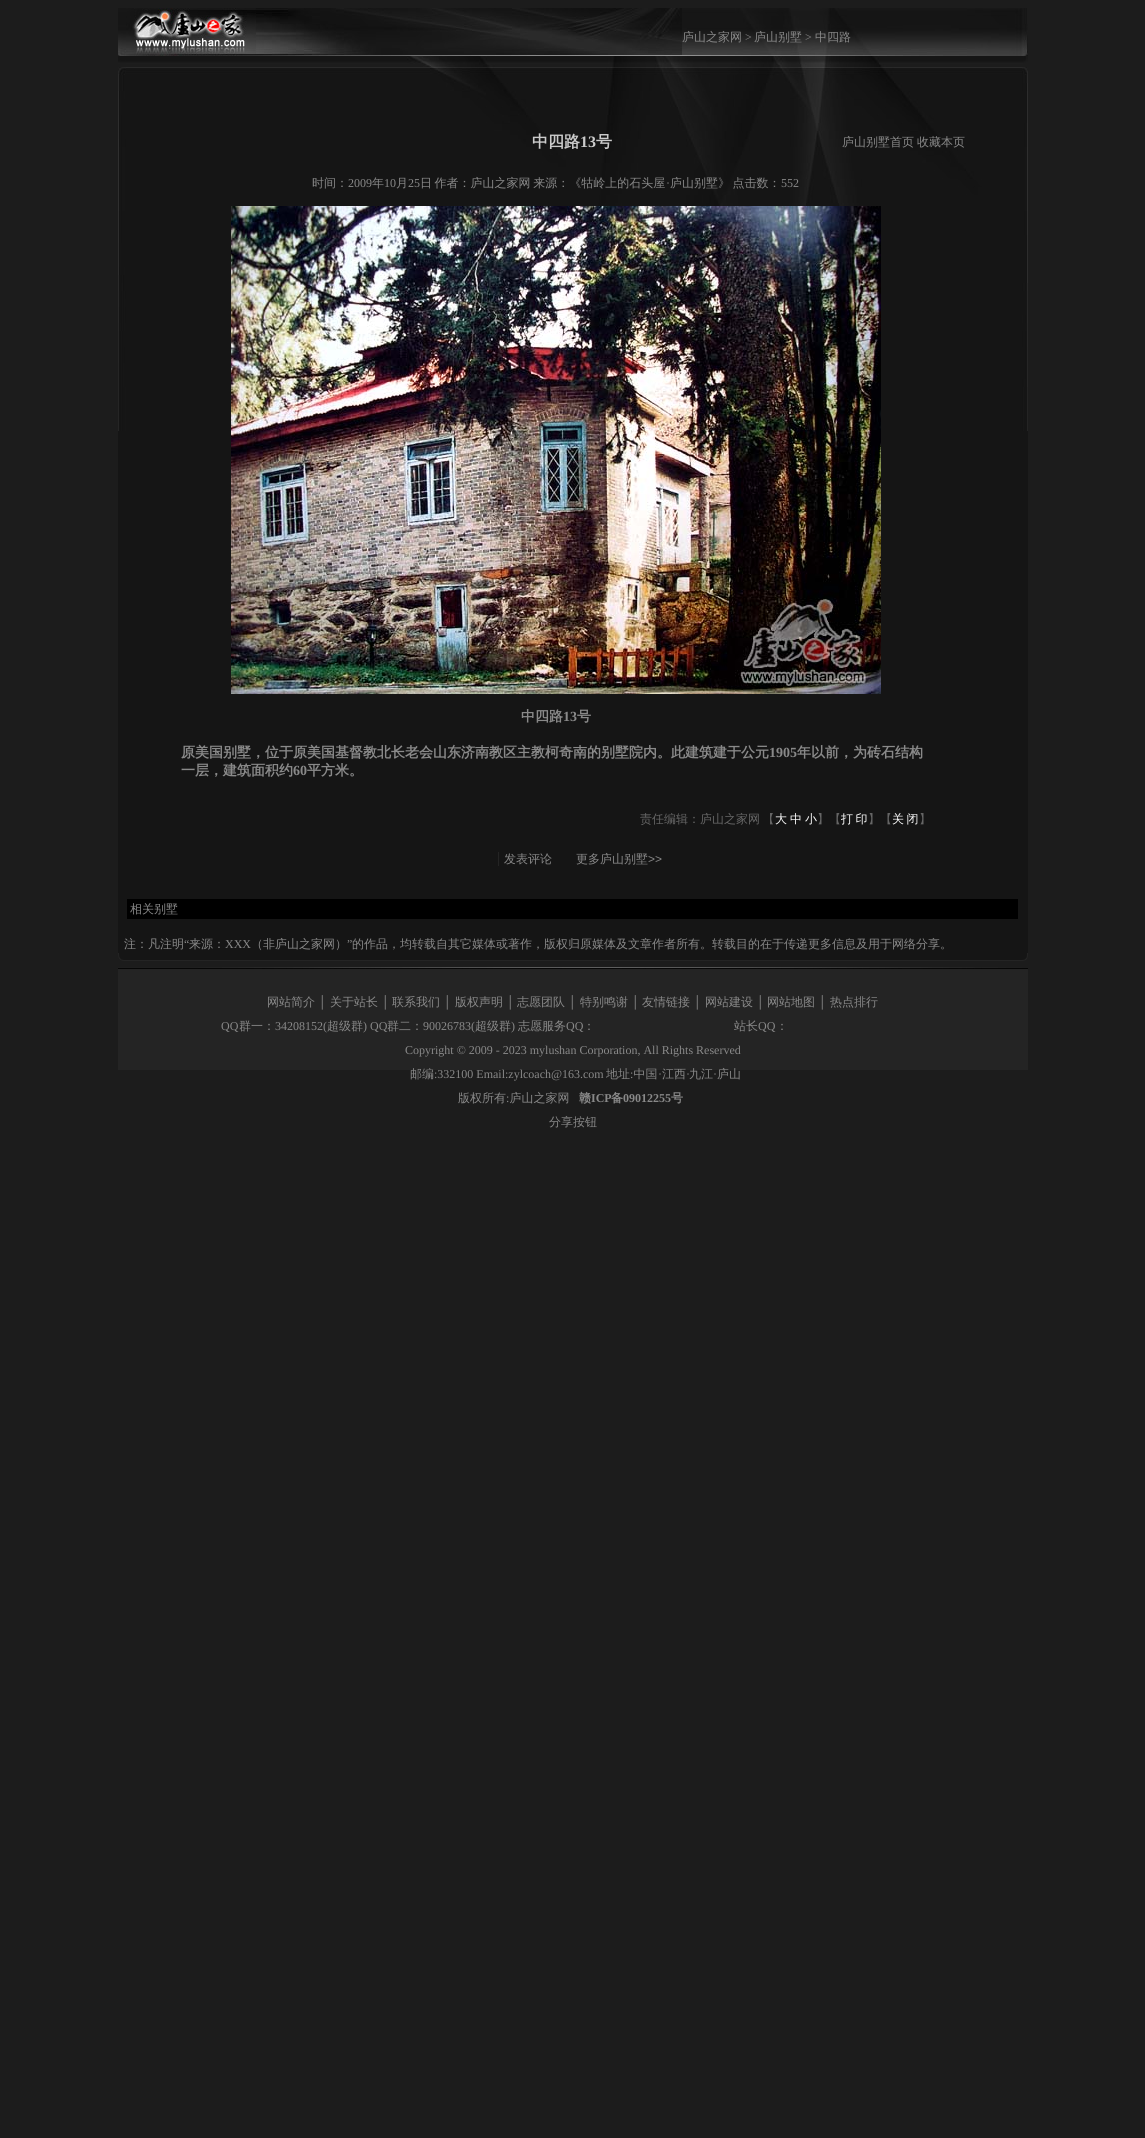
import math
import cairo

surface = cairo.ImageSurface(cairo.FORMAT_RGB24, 1145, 2138)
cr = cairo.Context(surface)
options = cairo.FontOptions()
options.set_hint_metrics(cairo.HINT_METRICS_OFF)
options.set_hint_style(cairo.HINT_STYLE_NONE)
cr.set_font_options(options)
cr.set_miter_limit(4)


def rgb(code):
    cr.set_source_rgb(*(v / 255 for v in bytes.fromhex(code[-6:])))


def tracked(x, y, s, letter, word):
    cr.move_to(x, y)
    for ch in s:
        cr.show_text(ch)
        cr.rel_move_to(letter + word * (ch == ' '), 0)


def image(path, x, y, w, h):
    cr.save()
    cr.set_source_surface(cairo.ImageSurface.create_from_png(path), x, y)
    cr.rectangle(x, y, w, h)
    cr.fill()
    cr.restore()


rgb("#1c1c1c")
cr.paint()
image("img/1.png", 247, 8, 781, 59)
image("img/2.png", 118, 8, 129, 59)
image("img/3.png", 256, 8, 426, 47)
rgb("#151515")
cr.rectangle(118, 431, 910, 522)
cr.fill()
image("img/4.png", 118, 67, 910, 364)
image("img/5.png", 231, 206, 650, 488)
rgb("#242424")
cr.rectangle(498, 852, 1, 14)
cr.fill()
rgb("#000000")
cr.rectangle(127, 899, 891, 20)
cr.fill()
image("img/6.png", 118, 953, 910, 8)
rgb("#242424")
cr.rectangle(118, 969, 910, 101)
cr.fill()
image("img/7.png", 118, 967, 910, 2)
cr.select_font_face("WenQuanYi Zen Hei Medium")
cr.set_font_size(12)
rgb("#898989")
cr.move_to(682, 41)
cr.show_text("庐山之家网")
cr.select_font_face("Liberation Serif")
cr.move_to(745, 41)
cr.show_text(">")
cr.select_font_face("WenQuanYi Zen Hei Medium")
cr.move_to(754, 41)
cr.show_text("庐山别墅")
cr.select_font_face("Liberation Serif")
cr.move_to(805, 41)
cr.show_text(">")
cr.select_font_face("WenQuanYi Zen Hei Medium")
cr.move_to(815, 41)
cr.show_text("中四路")
cr.select_font_face("WenQuanYi Zen Hei", cairo.FONT_SLANT_NORMAL, cairo.FONT_WEIGHT_BOLD)
cr.set_font_size(16)
rgb("#cbcbcb")
cr.move_to(532, 147)
cr.show_text("中四路")
cr.select_font_face("Liberation Serif", cairo.FONT_SLANT_NORMAL, cairo.FONT_WEIGHT_BOLD)
cr.move_to(580, 147)
cr.show_text("13")
cr.select_font_face("WenQuanYi Zen Hei", cairo.FONT_SLANT_NORMAL, cairo.FONT_WEIGHT_BOLD)
cr.move_to(596, 147)
cr.show_text("号")
cr.select_font_face("WenQuanYi Zen Hei Medium")
cr.set_font_size(12)
rgb("#898989")
for x, y, s in [
    (842, 146, "庐山别墅首页"),
    (917, 146, "收藏本页"),
    (312, 187, "时间："),
]:
    cr.move_to(x, y)
    cr.show_text(s)
cr.select_font_face("Liberation Serif")
cr.move_to(348, 187)
cr.show_text("2009")
cr.select_font_face("WenQuanYi Zen Hei Medium")
cr.move_to(372, 187)
cr.show_text("年")
cr.select_font_face("Liberation Serif")
cr.move_to(384, 187)
cr.show_text("10")
cr.select_font_face("WenQuanYi Zen Hei Medium")
cr.move_to(396, 187)
cr.show_text("月")
cr.select_font_face("Liberation Serif")
cr.move_to(408, 187)
cr.show_text("25")
cr.select_font_face("WenQuanYi Zen Hei Medium")
tracked(420, 187, "日 作者：庐山之家网 来源：《牯岭上的石头屋", 0, -1)
cr.select_font_face("Liberation Serif")
cr.move_to(666, 187)
cr.show_text("·")
cr.select_font_face("WenQuanYi Zen Hei Medium")
tracked(670, 187, "庐山别墅》 点击数：", 0, -1)
cr.select_font_face("Liberation Serif")
cr.move_to(781, 187)
cr.show_text("552")
cr.select_font_face("WenQuanYi Zen Hei", cairo.FONT_SLANT_NORMAL, cairo.FONT_WEIGHT_BOLD)
cr.set_font_size(14)
cr.move_to(521, 721)
cr.show_text("中四路")
cr.select_font_face("Liberation Serif", cairo.FONT_SLANT_NORMAL, cairo.FONT_WEIGHT_BOLD)
cr.move_to(563, 721)
cr.show_text("13")
cr.select_font_face("WenQuanYi Zen Hei", cairo.FONT_SLANT_NORMAL, cairo.FONT_WEIGHT_BOLD)
cr.move_to(577, 721)
cr.show_text("号")
cr.move_to(181, 757)
cr.show_text("原美国别墅，位于原美国基督教北长老会山东济南教区主教柯奇南的别墅院内。此建筑建于公元")
cr.select_font_face("Liberation Serif", cairo.FONT_SLANT_NORMAL, cairo.FONT_WEIGHT_BOLD)
cr.move_to(769, 757)
cr.show_text("1905")
cr.select_font_face("WenQuanYi Zen Hei", cairo.FONT_SLANT_NORMAL, cairo.FONT_WEIGHT_BOLD)
cr.move_to(797, 757)
cr.show_text("年以前，为砖石结构")
cr.move_to(181, 775)
cr.show_text("一层，建筑面积约")
cr.select_font_face("Liberation Serif", cairo.FONT_SLANT_NORMAL, cairo.FONT_WEIGHT_BOLD)
cr.move_to(293, 775)
cr.show_text("60")
cr.select_font_face("WenQuanYi Zen Hei", cairo.FONT_SLANT_NORMAL, cairo.FONT_WEIGHT_BOLD)
cr.move_to(307, 775)
cr.show_text("平方米。")
cr.select_font_face("WenQuanYi Zen Hei Medium")
cr.set_font_size(12)
rgb("#666666")
tracked(640, 823, "责任编辑：庐山之家网 【", 0, -1)
rgb("#ffffff")
for x, y, s in [
    (775, 823, "大"),
    (790, 823, "中"),
    (805, 823, "小"),
]:
    cr.move_to(x, y)
    cr.show_text(s)
rgb("#666666")
cr.move_to(817, 823)
cr.show_text("】【")
rgb("#ffffff")
tracked(841, 823, "打 印", 0, -1)
rgb("#666666")
cr.move_to(868, 823)
cr.show_text("】【")
rgb("#ffffff")
tracked(892, 823, "关 闭", 0, -1)
rgb("#666666")
cr.move_to(919, 823)
cr.show_text("】")
rgb("#898989")
cr.move_to(504, 863)
cr.show_text("发表评论")
cr.move_to(576, 863)
cr.show_text("更多庐山别墅")
cr.select_font_face("Liberation Sans")
cr.move_to(648, 863)
cr.show_text(">>")
cr.select_font_face("WenQuanYi Zen Hei Medium")
cr.move_to(130, 913)
cr.show_text("相关别墅")
cr.move_to(124, 948)
cr.show_text("注：凡注明")
cr.select_font_face("Liberation Serif")
cr.move_to(184, 948)
cr.show_text("“")
cr.select_font_face("WenQuanYi Zen Hei Medium")
cr.move_to(189, 948)
cr.show_text("来源：")
cr.select_font_face("Liberation Serif")
cr.move_to(225, 948)
cr.show_text("XXX")
cr.select_font_face("WenQuanYi Zen Hei Medium")
cr.move_to(251, 948)
cr.show_text("（非庐山之家网）")
cr.select_font_face("Liberation Serif")
cr.move_to(347, 948)
cr.show_text("”")
cr.select_font_face("WenQuanYi Zen Hei Medium")
cr.move_to(352, 948)
cr.show_text("的作品，均转载自其它媒体或著作，版权归原媒体及文章作者所有。转载目的在于传递更多信息及用于网络分享。")
cr.move_to(267, 1006)
cr.show_text("网站简介")
cr.select_font_face("Liberation Serif")
cr.move_to(318, 1006)
cr.show_text("│")
cr.select_font_face("WenQuanYi Zen Hei Medium")
cr.move_to(330, 1006)
cr.show_text("关于站长")
cr.select_font_face("Liberation Serif")
cr.move_to(381, 1006)
cr.show_text("│")
cr.select_font_face("WenQuanYi Zen Hei Medium")
cr.move_to(392, 1006)
cr.show_text("联系我们")
cr.select_font_face("Liberation Serif")
cr.move_to(443, 1006)
cr.show_text("│")
cr.select_font_face("WenQuanYi Zen Hei Medium")
cr.move_to(455, 1006)
cr.show_text("版权声明")
cr.select_font_face("Liberation Serif")
cr.move_to(506, 1006)
cr.show_text("│")
cr.select_font_face("WenQuanYi Zen Hei Medium")
cr.move_to(517, 1006)
cr.show_text("志愿团队")
cr.select_font_face("Liberation Serif")
cr.move_to(568, 1006)
cr.show_text("│")
cr.select_font_face("WenQuanYi Zen Hei Medium")
cr.move_to(580, 1006)
cr.show_text("特别鸣谢")
cr.select_font_face("Liberation Serif")
cr.move_to(631, 1006)
cr.show_text("│")
cr.select_font_face("WenQuanYi Zen Hei Medium")
cr.move_to(642, 1006)
cr.show_text("友情链接")
cr.select_font_face("Liberation Serif")
cr.move_to(693, 1006)
cr.show_text("│")
cr.select_font_face("WenQuanYi Zen Hei Medium")
cr.move_to(705, 1006)
cr.show_text("网站建设")
cr.select_font_face("Liberation Serif")
cr.move_to(756, 1006)
cr.show_text("│")
cr.select_font_face("WenQuanYi Zen Hei Medium")
cr.move_to(767, 1006)
cr.show_text("网站地图")
cr.select_font_face("Liberation Serif")
cr.move_to(818, 1006)
cr.show_text("│")
cr.select_font_face("WenQuanYi Zen Hei Medium")
cr.move_to(830, 1006)
cr.show_text("热点排行")
cr.select_font_face("Liberation Serif")
cr.move_to(221, 1030)
cr.show_text("QQ")
cr.select_font_face("WenQuanYi Zen Hei Medium")
cr.move_to(239, 1030)
cr.show_text("群一：")
cr.select_font_face("Liberation Serif")
cr.move_to(275, 1030)
cr.show_text("34208152(")
cr.select_font_face("WenQuanYi Zen Hei Medium")
cr.move_to(327, 1030)
cr.show_text("超级群")
cr.select_font_face("Liberation Serif")
cr.move_to(363, 1030)
cr.show_text(") QQ")
cr.select_font_face("WenQuanYi Zen Hei Medium")
cr.move_to(387, 1030)
cr.show_text("群二：")
cr.select_font_face("Liberation Serif")
cr.move_to(423, 1030)
cr.show_text("90026783(")
cr.select_font_face("WenQuanYi Zen Hei Medium")
cr.move_to(475, 1030)
cr.show_text("超级群")
cr.select_font_face("Liberation Serif")
cr.move_to(511, 1030)
cr.show_text(")")
cr.select_font_face("WenQuanYi Zen Hei Medium")
cr.move_to(518, 1030)
cr.show_text("志愿服务")
cr.select_font_face("Liberation Serif")
cr.move_to(566, 1030)
cr.show_text("QQ")
cr.select_font_face("WenQuanYi Zen Hei Medium")
cr.move_to(583, 1030)
cr.show_text("：")
cr.move_to(734, 1030)
cr.show_text("站长")
cr.select_font_face("Liberation Serif")
cr.move_to(758, 1030)
cr.show_text("QQ")
cr.select_font_face("WenQuanYi Zen Hei Medium")
cr.move_to(776, 1030)
cr.show_text("：")
cr.select_font_face("Liberation Serif")
cr.move_to(405, 1054)
cr.show_text("Copyright © 2009 - 2023 mylushan Corporation, All Rights Reserved")
cr.select_font_face("WenQuanYi Zen Hei Medium")
cr.move_to(410, 1078)
cr.show_text("邮编")
cr.select_font_face("Liberation Serif")
cr.move_to(434, 1078)
cr.show_text(":332100 Email:zylcoach@163.com")
cr.select_font_face("WenQuanYi Zen Hei Medium")
for x, y, s in [
    (606, 1078, "地址 中国"),
    (662, 1078, "江西"),
    (689, 1078, "九江"),
    (717, 1078, "庐山"),
]:
    cr.move_to(x, y)
    cr.show_text(s)
cr.select_font_face("Liberation Serif")
for x, y, s in [
    (630, 1078, ":"),
    (658, 1078, "·"),
    (686, 1078, "·"),
    (713, 1078, "·"),
]:
    cr.move_to(x, y)
    cr.show_text(s)
cr.select_font_face("WenQuanYi Zen Hei Medium")
cr.move_to(458, 1102)
cr.show_text("版权所有 庐山之家网")
cr.select_font_face("WenQuanYi Zen Hei", cairo.FONT_SLANT_NORMAL, cairo.FONT_WEIGHT_BOLD)
cr.move_to(579, 1102)
cr.show_text("赣")
cr.select_font_face("Liberation Serif", cairo.FONT_SLANT_NORMAL, cairo.FONT_WEIGHT_BOLD)
cr.move_to(591, 1102)
cr.show_text("ICP")
cr.select_font_face("WenQuanYi Zen Hei", cairo.FONT_SLANT_NORMAL, cairo.FONT_WEIGHT_BOLD)
cr.move_to(611, 1102)
cr.show_text("备")
cr.select_font_face("Liberation Serif", cairo.FONT_SLANT_NORMAL, cairo.FONT_WEIGHT_BOLD)
cr.move_to(623, 1102)
cr.show_text("09012255")
cr.select_font_face("WenQuanYi Zen Hei", cairo.FONT_SLANT_NORMAL, cairo.FONT_WEIGHT_BOLD)
cr.move_to(671, 1102)
cr.show_text("号")
cr.select_font_face("Liberation Serif")
cr.move_to(506, 1102)
cr.show_text(":")
cr.select_font_face("WenQuanYi Zen Hei Medium")
cr.move_to(549, 1126)
cr.show_text("分享按钮")
surface.write_to_png("page.png")
